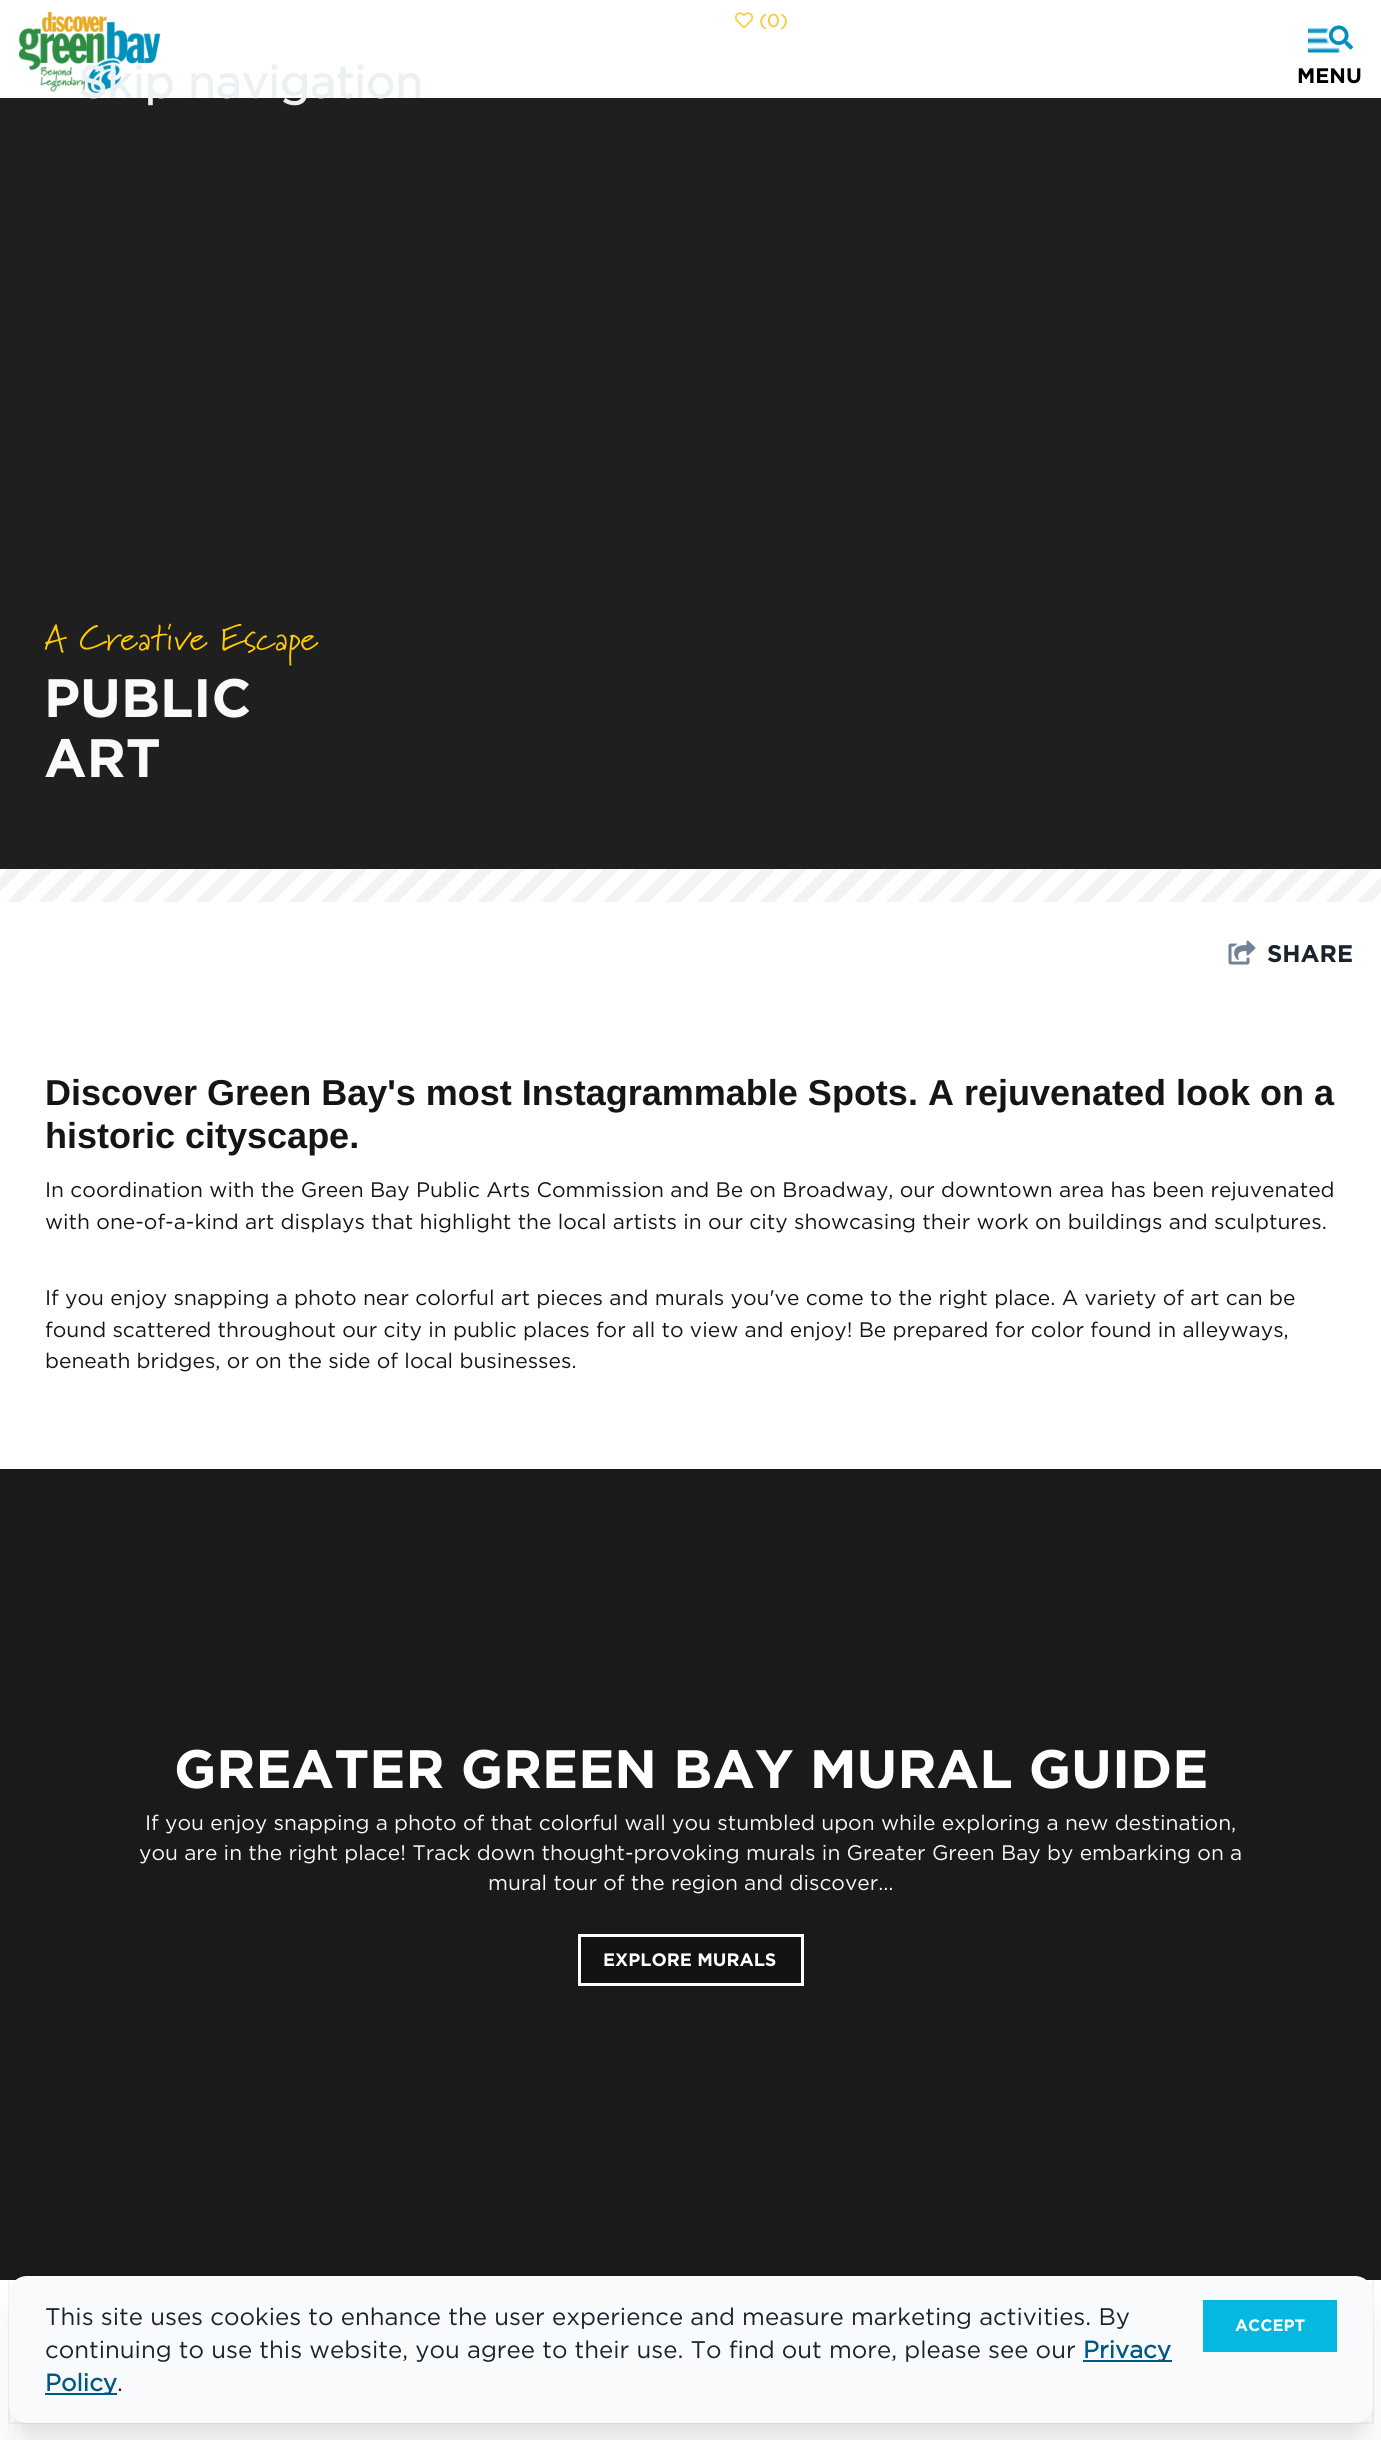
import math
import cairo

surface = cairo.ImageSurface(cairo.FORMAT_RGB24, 1381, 2440)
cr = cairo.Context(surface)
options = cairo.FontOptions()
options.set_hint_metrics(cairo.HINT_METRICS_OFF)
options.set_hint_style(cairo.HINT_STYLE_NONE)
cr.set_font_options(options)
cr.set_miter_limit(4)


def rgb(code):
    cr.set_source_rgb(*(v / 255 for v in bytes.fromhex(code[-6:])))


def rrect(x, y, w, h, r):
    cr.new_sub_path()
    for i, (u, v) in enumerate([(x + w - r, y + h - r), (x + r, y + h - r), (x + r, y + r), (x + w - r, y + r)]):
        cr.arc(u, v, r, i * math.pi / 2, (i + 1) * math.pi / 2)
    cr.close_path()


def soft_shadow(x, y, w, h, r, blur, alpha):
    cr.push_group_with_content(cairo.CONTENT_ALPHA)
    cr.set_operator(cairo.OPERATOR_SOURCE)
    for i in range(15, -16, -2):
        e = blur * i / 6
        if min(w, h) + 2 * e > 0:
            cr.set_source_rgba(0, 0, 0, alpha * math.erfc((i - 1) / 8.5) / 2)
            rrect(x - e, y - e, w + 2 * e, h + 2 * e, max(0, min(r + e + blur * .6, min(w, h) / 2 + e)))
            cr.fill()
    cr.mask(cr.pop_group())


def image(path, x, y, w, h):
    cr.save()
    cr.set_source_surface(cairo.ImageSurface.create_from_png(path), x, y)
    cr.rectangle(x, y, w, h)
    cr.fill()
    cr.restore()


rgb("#ffffff")
cr.paint()
image("img/1.png", 18, 12, 143, 81)
image("img/2.png", 735, 12, 18, 17)
image("img/3.png", 1308, 28, 32, 25)
image("img/4.png", 1329, 25, 24, 25)
rgb("#1f1f1f")
cr.rectangle(0, 98, 1381, 771)
cr.fill()
image("img/5.png", 0, 869, 1381, 33)
image("img/6.png", 1228, 940, 28, 25)
rgb("#1a1a1a")
cr.rectangle(0, 1469, 1381, 811)
cr.fill()
rgb("#121212")
cr.rectangle(579.5, 1935.5, 223, 49)
cr.fill_preserve()
rgb("#ffffff")
cr.set_line_width(3)
cr.stroke()
rgb("#000000")
soft_shadow(17, 2298, 1348, 132, 11, 7.5, 0.04)
soft_shadow(17, 2313, 1348, 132, 11, 19, 0.1)
cr.rectangle(9, 2275, 1364, 148)
cr.set_source_rgba(0, 0, 0, 0.05)
cr.set_line_width(2)
cr.stroke()
rgb("#f8fafc")
rrect(9, 2276, 1364, 147, 18)
cr.fill()
for x, y, w, h, color in [
    (1083, 2360, 89, 2, "#005984"),
    (45, 2393, 72, 2, "#005984"),
    (1203, 2300, 134, 52, "#05b8e2"),
]:
    rgb(color)
    cr.rectangle(x, y, w, h)
    cr.fill()
cr.select_font_face("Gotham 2", cairo.FONT_SLANT_NORMAL, cairo.FONT_WEIGHT_BOLD)
cr.set_font_size(18)
rgb("#f5cc45")
cr.move_to(759, 27)
cr.show_text("(0)")
cr.select_font_face("Gotham", cairo.FONT_SLANT_NORMAL, cairo.FONT_WEIGHT_BOLD)
cr.set_font_size(21)
rgb("#000000")
cr.move_to(1297, 83)
cr.show_text("MENU")
cr.select_font_face("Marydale")
cr.set_font_size(36)
rgb("#fdcb00")
cr.move_to(44, 650)
cr.show_text("A Creative Escape")
cr.select_font_face("Gotham", cairo.FONT_SLANT_NORMAL, cairo.FONT_WEIGHT_BOLD)
cr.set_font_size(54)
rgb("#f8fafc")
cr.move_to(44, 717)
cr.show_text("PUBLIC")
cr.move_to(44, 777)
cr.show_text("ART")
cr.set_font_size(24)
rgb("#1a222d")
cr.move_to(1267, 962)
cr.show_text("SHARE")
cr.select_font_face("Liberation Sans", cairo.FONT_SLANT_NORMAL, cairo.FONT_WEIGHT_BOLD)
cr.set_font_size(36)
rgb("#151515")
cr.move_to(45, 1105)
cr.show_text("Discover Green Bay's most Instagrammable Spots. A rejuvenated look on a")
cr.move_to(45, 1148)
cr.show_text("historic cityscape.")
cr.select_font_face("Gotham")
cr.set_font_size(21)
for x, y, s in [
    (45, 1197, "In coordination with the Green Bay Public Arts Commission and Be on Broadway, our downtown area has been rejuvenated"),
    (45, 1229, "with one-of-a-kind art displays that highlight the local artists in our city showcasing their work on buildings and sculptures."),
    (45, 1305, "If you enjoy snapping a photo near colorful art pieces and murals you've come to the right place. A variety of art can be"),
    (45, 1337, "found scattered throughout our city in public places for all to view and enjoy! Be prepared for color found in alleyways,"),
    (45, 1368, "beneath bridges, or on the side of local businesses."),
]:
    cr.move_to(x, y)
    cr.show_text(s)
cr.select_font_face("Gotham", cairo.FONT_SLANT_NORMAL, cairo.FONT_WEIGHT_BOLD)
cr.set_font_size(54)
rgb("#ffffff")
cr.move_to(174, 1788)
cr.show_text("GREATER GREEN BAY MURAL GUIDE")
cr.select_font_face("Gotham")
cr.set_font_size(21)
rgb("#f8fafc")
for x, y, s in [
    (145, 1830, "If you enjoy snapping a photo of that colorful wall you stumbled upon while exploring a new destination,"),
    (139, 1860, "you are in the right place! Track down thought-provoking murals in Greater Green Bay by embarking on a"),
    (488, 1890, "mural tour of the region and discover…"),
]:
    cr.move_to(x, y)
    cr.show_text(s)
cr.select_font_face("Gotham", cairo.FONT_SLANT_NORMAL, cairo.FONT_WEIGHT_BOLD)
cr.set_font_size(18)
rgb("#ffffff")
cr.move_to(603, 1966)
cr.show_text("EXPLORE MURALS")
cr.select_font_face("Gotham")
cr.set_font_size(24)
rgb("#1a222d")
cr.move_to(45, 2325)
cr.show_text("This site uses cookies to enhance the user experience and measure marketing activities. By")
cr.move_to(45, 2358)
cr.show_text("continuing to use this website, you agree to their use. To find out more, please see our")
cr.select_font_face("Gotham 2", cairo.FONT_SLANT_NORMAL, cairo.FONT_WEIGHT_BOLD)
rgb("#005984")
cr.move_to(1083, 2358)
cr.show_text("Privacy")
cr.move_to(45, 2391)
cr.show_text("Policy")
cr.select_font_face("Gotham")
rgb("#1a222d")
cr.move_to(117, 2391)
cr.show_text(".")
cr.select_font_face("Gotham", cairo.FONT_SLANT_NORMAL, cairo.FONT_WEIGHT_BOLD)
cr.set_font_size(16.5)
rgb("#ffffff")
cr.move_to(1235, 2331)
cr.show_text("ACCEPT")
cr.select_font_face("Gotham 2", cairo.FONT_SLANT_NORMAL, cairo.FONT_WEIGHT_BOLD)
cr.set_font_size(45)
rgb("#ebf0f2")
cr.move_to(78, 98)
cr.show_text("Skip navigation")
surface.write_to_png("page.png")
